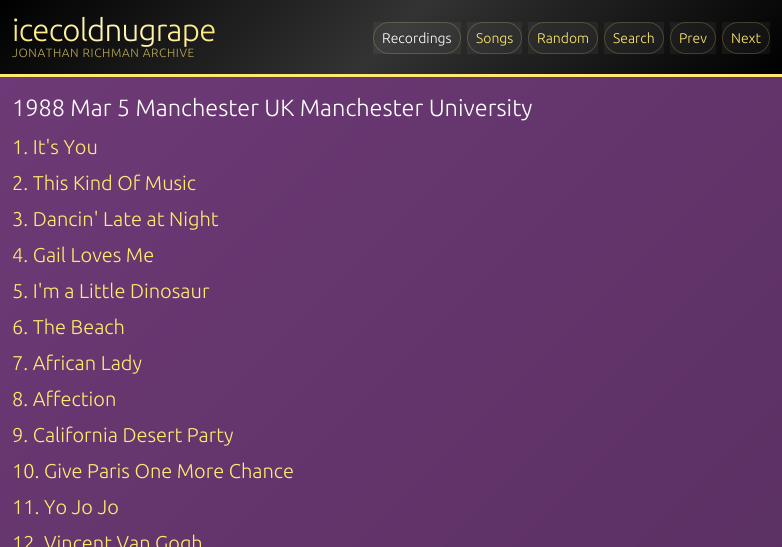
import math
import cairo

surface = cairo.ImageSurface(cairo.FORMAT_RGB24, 782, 547)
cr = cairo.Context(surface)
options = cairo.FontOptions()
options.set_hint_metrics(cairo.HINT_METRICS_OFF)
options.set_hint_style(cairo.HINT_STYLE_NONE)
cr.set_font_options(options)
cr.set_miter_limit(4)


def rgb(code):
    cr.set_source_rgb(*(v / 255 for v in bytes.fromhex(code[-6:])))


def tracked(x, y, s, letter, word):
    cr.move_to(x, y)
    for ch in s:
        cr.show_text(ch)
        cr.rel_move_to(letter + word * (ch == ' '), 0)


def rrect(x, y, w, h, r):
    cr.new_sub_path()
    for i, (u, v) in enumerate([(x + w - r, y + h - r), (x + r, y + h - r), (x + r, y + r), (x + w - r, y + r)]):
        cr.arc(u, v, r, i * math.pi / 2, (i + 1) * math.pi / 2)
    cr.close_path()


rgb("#ffffff")
cr.paint()
gradient = cairo.LinearGradient(-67, 67, 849, 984)
gradient.add_color_stop_rgba(0, 0.431, 0.227, 0.467, 1)
gradient.add_color_stop_rgba(1, 0.333, 0.176, 0.361, 1)
cr.set_source(gradient)
cr.rectangle(0, 77, 782, 470)
cr.fill()
gradient = cairo.LinearGradient(177, -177, 605, 251)
gradient.add_color_stop_rgba(0, 0, 0, 0, 1)
gradient.add_color_stop_rgba(0.5, 0.2, 0.2, 0.2, 1)
gradient.add_color_stop_rgba(1, 0, 0, 0, 1)
cr.set_source(gradient)
cr.rectangle(0, 0, 782, 74)
cr.fill()
rgb("#ffe96f")
cr.rectangle(0, 74, 782, 3)
cr.fill()
cr.set_source_rgba(1, 1, 1, 0.05)
cr.rectangle(373, 22, 88, 32)
cr.fill()
rrect(373.5, 22.5, 87, 31, 15.5)
cr.set_source_rgba(1, 0.914, 0.435, 0.2)
cr.set_line_width(1)
cr.stroke()
cr.set_source_rgba(1, 1, 1, 0.05)
cr.rectangle(467, 22, 55, 32)
cr.fill()
rrect(467.5, 22.5, 54, 31, 15.5)
cr.set_source_rgba(1, 0.914, 0.435, 0.2)
cr.stroke()
cr.set_source_rgba(1, 1, 1, 0.05)
cr.rectangle(528, 22, 70, 32)
cr.fill()
rrect(528.5, 22.5, 69, 31, 15.5)
cr.set_source_rgba(1, 0.914, 0.435, 0.2)
cr.stroke()
cr.set_source_rgba(1, 1, 1, 0.05)
cr.rectangle(604, 22, 60, 32)
cr.fill()
rrect(604.5, 22.5, 59, 31, 15.5)
cr.set_source_rgba(1, 0.914, 0.435, 0.2)
cr.stroke()
cr.set_source_rgba(1, 1, 1, 0.05)
cr.rectangle(670, 22, 46, 32)
cr.fill()
rrect(670.5, 22.5, 45, 31, 15.5)
cr.set_source_rgba(1, 0.914, 0.435, 0.2)
cr.stroke()
cr.set_source_rgba(1, 1, 1, 0.05)
cr.rectangle(722, 22, 48, 32)
cr.fill()
rrect(722.5, 22.5, 47, 31, 15.5)
cr.set_source_rgba(1, 0.914, 0.435, 0.2)
cr.stroke()
cr.select_font_face("Ubuntu Light")
cr.set_font_size(31.25)
gradient = cairo.LinearGradient(54, 89, 173, -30)
gradient.add_color_stop_rgba(0, 1, 0.914, 0.435, 1)
gradient.add_color_stop_rgba(0.5, 1, 0.961, 0.737, 1)
gradient.add_color_stop_rgba(1, 1, 0.914, 0.435, 1)
cr.set_source(gradient)
tracked(12, 41, "icecoldnugrape", -0.75, 0)
cr.set_font_size(12)
rgb("#b8a953")
tracked(12, 57, "JONATHAN RICHMAN ARCHIVE", 0.6, 0)
cr.set_font_size(14)
rgb("#ffffff")
cr.move_to(382, 43)
cr.show_text("Recordings")
rgb("#ffe96f")
for x, y, s in [
    (476, 43, "Songs"),
    (537, 43, "Random"),
    (613, 43, "Search"),
    (679, 43, "Prev"),
    (731, 43, "Next"),
]:
    cr.move_to(x, y)
    cr.show_text(s)
cr.set_font_size(23.5)
rgb("#ffffff")
cr.move_to(12, 116)
cr.show_text("1988 Mar 5 Manchester UK Manchester University")
cr.set_font_size(20)
rgb("#ffe96f")
for x, y, s in [
    (12, 154, "1. It's You"),
    (12, 190, "2. This Kind Of Music"),
    (12, 226, "3. Dancin' Late at Night"),
    (12, 262, "4. Gail Loves Me"),
    (12, 298, "5. I'm a Little Dinosaur"),
    (12, 334, "6. The Beach"),
    (12, 370, "7. African Lady"),
    (12, 406, "8. Affection"),
    (12, 442, "9. California Desert Party"),
    (12, 478, "10. Give Paris One More Chance"),
    (12, 514, "11. Yo Jo Jo"),
    (12, 550, "12. Vincent Van Gogh"),
]:
    cr.move_to(x, y)
    cr.show_text(s)
surface.write_to_png("page.png")
